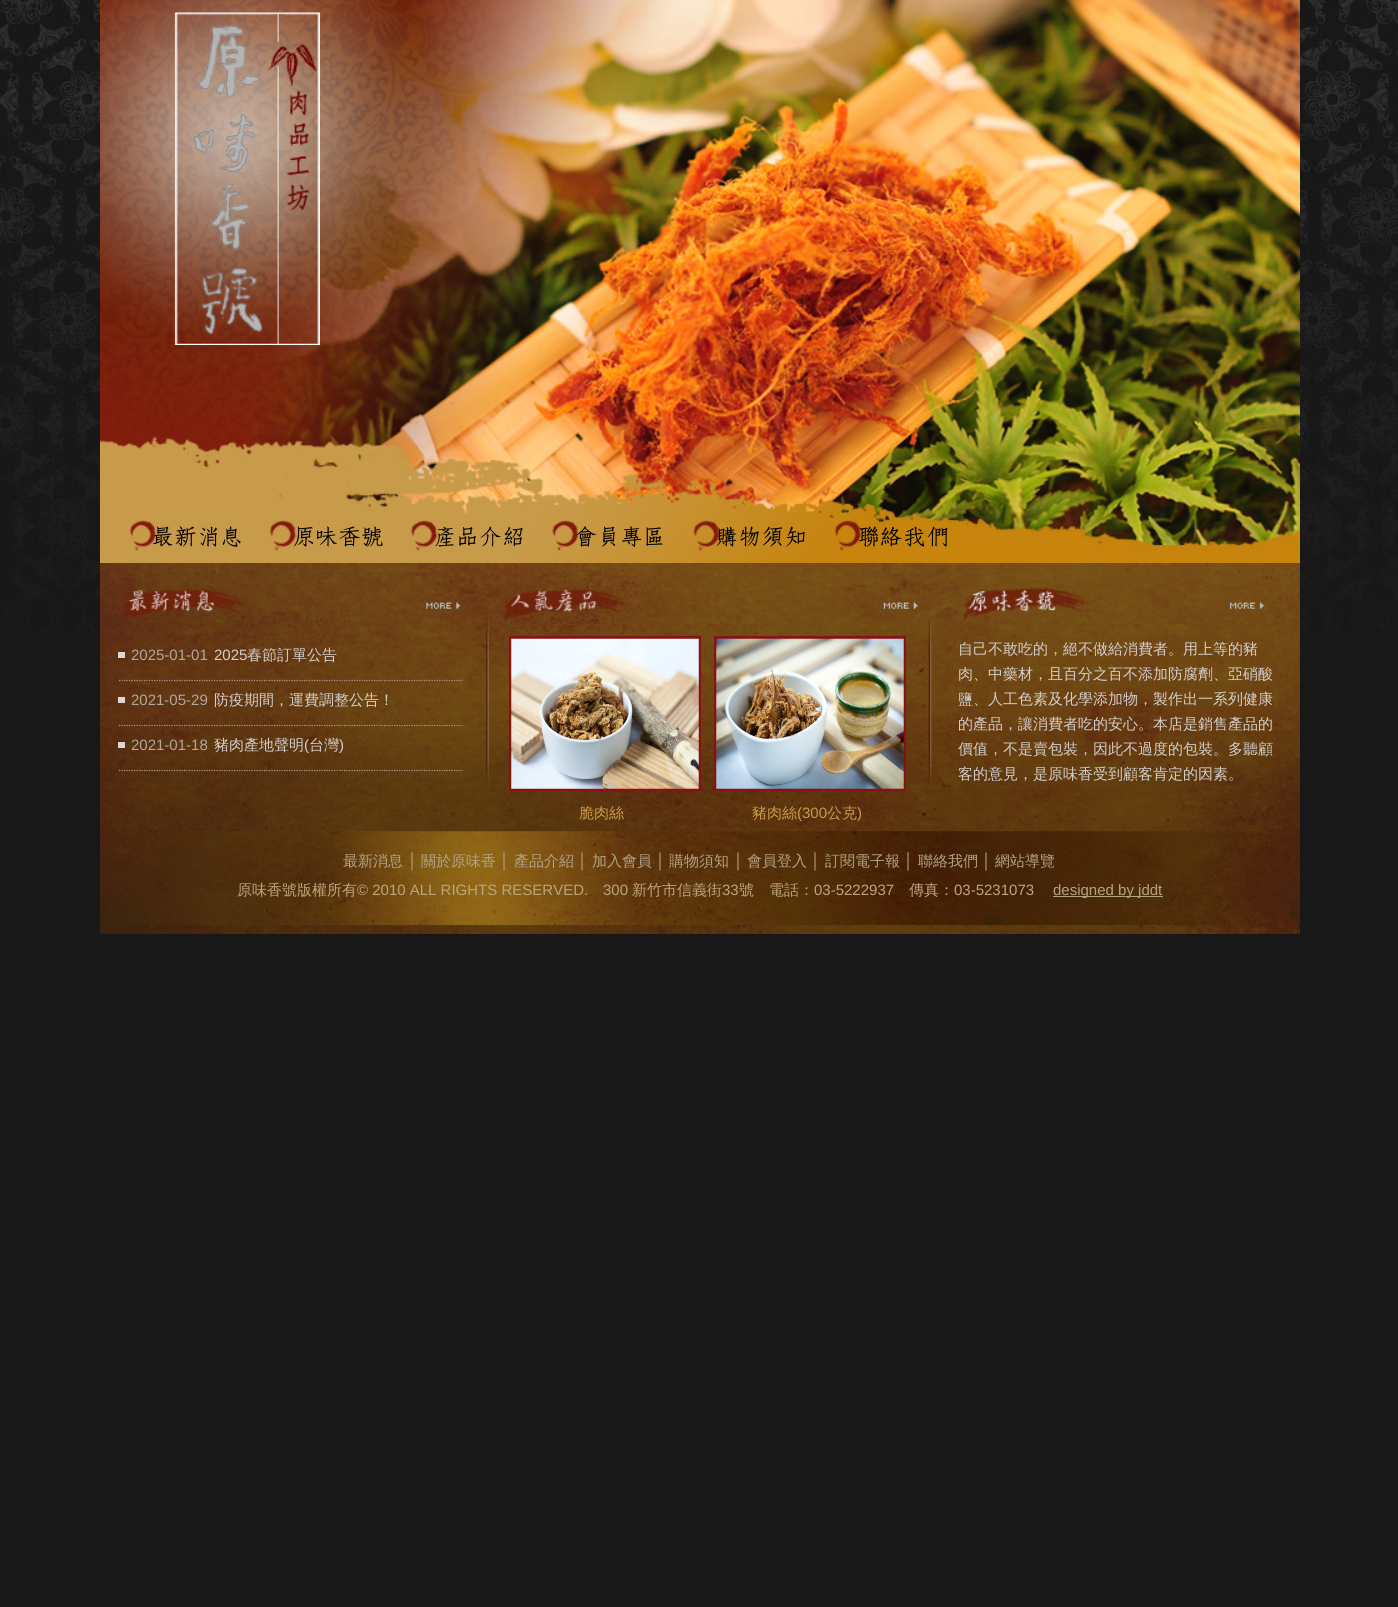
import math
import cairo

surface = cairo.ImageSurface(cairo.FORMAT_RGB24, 1398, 1607)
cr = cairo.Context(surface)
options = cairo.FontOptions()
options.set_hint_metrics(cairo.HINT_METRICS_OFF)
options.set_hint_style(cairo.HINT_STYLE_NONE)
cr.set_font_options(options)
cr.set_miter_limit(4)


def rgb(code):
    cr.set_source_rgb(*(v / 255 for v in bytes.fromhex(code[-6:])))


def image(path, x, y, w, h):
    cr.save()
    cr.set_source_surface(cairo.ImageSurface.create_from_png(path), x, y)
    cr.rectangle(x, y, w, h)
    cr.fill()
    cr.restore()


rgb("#181818")
cr.paint()
image("img/1.png", 0, 0, 1398, 631)
image("img/2.png", 100, 563, 1200, 371)
image("img/3.png", 100, 0, 1200, 563)
image("img/4.png", 174, 12, 146, 333)
image("img/5.png", 197, 24, 64, 75)
image("img/6.png", 193, 113, 63, 60)
image("img/7.png", 209, 182, 42, 69)
image("img/8.png", 201, 267, 62, 68)
image("img/15.png", 486, 613, 446, 175)
image("img/16.png", 119, 587, 344, 37)
rgb("#dfd6d1")
cr.rectangle(118, 652, 7, 6)
cr.fill()
cr.new_path()
cr.move_to(119, 680.5)
cr.line_to(462.5, 680.5)
rgb("#b09989")
cr.set_line_width(1.2)
cr.set_dash([1.25, 1.25])
cr.stroke()
rgb("#dfd6d1")
cr.rectangle(118, 697, 7, 6)
cr.fill()
cr.new_path()
cr.move_to(119, 725.5)
cr.line_to(462.5, 725.5)
rgb("#b09989")
cr.stroke()
rgb("#dfd6d1")
cr.rectangle(118, 742, 7, 6)
cr.fill()
cr.new_path()
cr.move_to(119, 770.5)
cr.line_to(462.5, 770.5)
rgb("#b09989")
cr.stroke()
image("img/17.png", 959, 587, 322, 37)
image("img/18.png", 500, 587, 420, 37)
cr.rectangle(510.5, 637.5, 189, 152)
rgb("#861212")
cr.set_line_width(3)
cr.set_dash([])
cr.stroke()
image("img/19.png", 511, 638, 188, 151)
cr.rectangle(715.5, 637.5, 189, 152)
cr.stroke()
image("img/20.png", 716, 638, 188, 151)
image("img/21.png", 100, 831, 1200, 103)
rgb("#b3a286")
cr.rectangle(1053, 896, 110, 1)
cr.fill()
cr.select_font_face("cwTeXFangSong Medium")
cr.set_font_size(25)
rgb("#000000")
cr.move_to(151, 545)
cr.show_text("最新消息")
image("img/9.png", 129, 520, 27, 31)
cr.move_to(292, 545)
cr.show_text("原味香號")
image("img/10.png", 269, 520, 28, 31)
cr.move_to(433, 545)
cr.show_text("產品介紹")
image("img/11.png", 411, 520, 27, 31)
cr.move_to(574, 545)
cr.show_text("會員專區")
image("img/12.png", 552, 520, 27, 31)
cr.move_to(715, 545)
cr.show_text("購物須知")
image("img/13.png", 693, 520, 27, 31)
cr.move_to(857, 545)
cr.show_text("聯絡我們")
image("img/14.png", 834, 520, 27, 31)
cr.select_font_face("Liberation Sans")
cr.set_font_size(15)
rgb("#b4a69b")
cr.move_to(131, 660)
cr.show_text("2025-01-01")
rgb("#d3ceca")
cr.move_to(214, 660)
cr.show_text("2025")
cr.select_font_face("WenQuanYi Zen Hei Medium")
cr.move_to(247, 660)
cr.show_text("春節訂單公告")
cr.select_font_face("Liberation Sans")
rgb("#b4a69b")
cr.move_to(131, 705)
cr.show_text("2021-05-29")
cr.select_font_face("WenQuanYi Zen Hei Medium")
rgb("#d3ceca")
cr.move_to(214, 705)
cr.show_text("防疫期間，運費調整公告！")
cr.select_font_face("Liberation Sans")
rgb("#b4a69b")
cr.move_to(131, 750)
cr.show_text("2021-01-18")
cr.select_font_face("WenQuanYi Zen Hei Medium")
rgb("#d3ceca")
cr.move_to(214, 750)
cr.show_text("豬肉產地聲明")
cr.select_font_face("Liberation Sans")
cr.move_to(304, 750)
cr.show_text("(")
cr.select_font_face("WenQuanYi Zen Hei Medium")
cr.move_to(309, 750)
cr.show_text("台灣")
cr.select_font_face("Liberation Sans")
cr.move_to(339, 750)
cr.show_text(")")
cr.select_font_face("WenQuanYi Zen Hei Medium")
for x, y, s in [
    (958, 654, "自己不敢吃的，絕不做給消費者。用上等的豬"),
    (958, 679, "肉、中藥材，且百分之百不添加防腐劑、亞硝酸"),
    (958, 704, "鹽、人工色素及化學添加物，製作出一系列健康"),
    (958, 729, "的產品，讓消費者吃的安心。本店是銷售產品的"),
    (958, 754, "價值，不是賣包裝，因此不過度的包裝。多聽顧"),
    (958, 779, "客的意見，是原味香受到顧客肯定的因素。"),
]:
    cr.move_to(x, y)
    cr.show_text(s)
rgb("#c89b4b")
cr.move_to(579, 818)
cr.show_text("脆肉絲")
cr.move_to(752, 818)
cr.show_text("豬肉絲")
cr.select_font_face("Liberation Sans")
cr.move_to(797, 818)
cr.show_text("(300")
cr.select_font_face("WenQuanYi Zen Hei Medium")
cr.move_to(827, 818)
cr.show_text("公克")
cr.select_font_face("Liberation Sans")
cr.move_to(857, 818)
cr.show_text(")")
cr.select_font_face("WenQuanYi Zen Hei Medium")
rgb("#b3a286")
cr.move_to(343, 866)
cr.show_text("最新消息")
cr.select_font_face("Liberation Sans")
cr.move_to(408, 866)
cr.show_text("│")
cr.select_font_face("WenQuanYi Zen Hei Medium")
cr.move_to(421, 866)
cr.show_text("關於原味香")
cr.select_font_face("Liberation Sans")
cr.move_to(500, 866)
cr.show_text("│")
cr.select_font_face("WenQuanYi Zen Hei Medium")
cr.move_to(514, 866)
cr.show_text("產品介紹")
cr.select_font_face("Liberation Sans")
cr.move_to(578, 866)
cr.show_text("│")
cr.select_font_face("WenQuanYi Zen Hei Medium")
cr.move_to(592, 866)
cr.show_text("加入會員")
cr.select_font_face("Liberation Sans")
cr.move_to(656, 866)
cr.show_text("│")
cr.select_font_face("WenQuanYi Zen Hei Medium")
cr.move_to(669, 866)
cr.show_text("購物須知")
cr.select_font_face("Liberation Sans")
cr.move_to(734, 866)
cr.show_text("│")
cr.select_font_face("WenQuanYi Zen Hei Medium")
cr.move_to(747, 866)
cr.show_text("會員登入")
cr.select_font_face("Liberation Sans")
cr.move_to(811, 866)
cr.show_text("│")
cr.select_font_face("WenQuanYi Zen Hei Medium")
cr.move_to(825, 866)
cr.show_text("訂閱電子報")
cr.select_font_face("Liberation Sans")
cr.move_to(904, 866)
cr.show_text("│")
cr.select_font_face("WenQuanYi Zen Hei Medium")
cr.move_to(918, 866)
cr.show_text("聯絡我們")
cr.select_font_face("Liberation Sans")
cr.move_to(982, 866)
cr.show_text("│")
cr.select_font_face("WenQuanYi Zen Hei Medium")
cr.move_to(995, 866)
cr.show_text("網站導覽")
rgb("#bca57b")
cr.move_to(237, 895)
cr.show_text("原味香號版權所有")
cr.select_font_face("Liberation Sans")
cr.move_to(357, 895)
cr.show_text("© 2010 ALL RIGHTS RESERVED.")
cr.move_to(603, 895)
cr.show_text("300")
cr.select_font_face("WenQuanYi Zen Hei Medium")
cr.move_to(632, 895)
cr.show_text("新竹市信義街")
cr.select_font_face("Liberation Sans")
cr.move_to(722, 895)
cr.show_text("33")
cr.select_font_face("WenQuanYi Zen Hei Medium")
cr.move_to(739, 895)
cr.show_text("號　電話：")
cr.select_font_face("Liberation Sans")
cr.move_to(814, 895)
cr.show_text("03-5222937")
cr.select_font_face("WenQuanYi Zen Hei Medium")
cr.move_to(909, 895)
cr.show_text("傳真：")
cr.select_font_face("Liberation Sans")
cr.move_to(954, 895)
cr.show_text("03-5231073")
rgb("#b3a286")
cr.move_to(1053, 895)
cr.show_text("designed by jddt")
surface.write_to_png("page.png")
